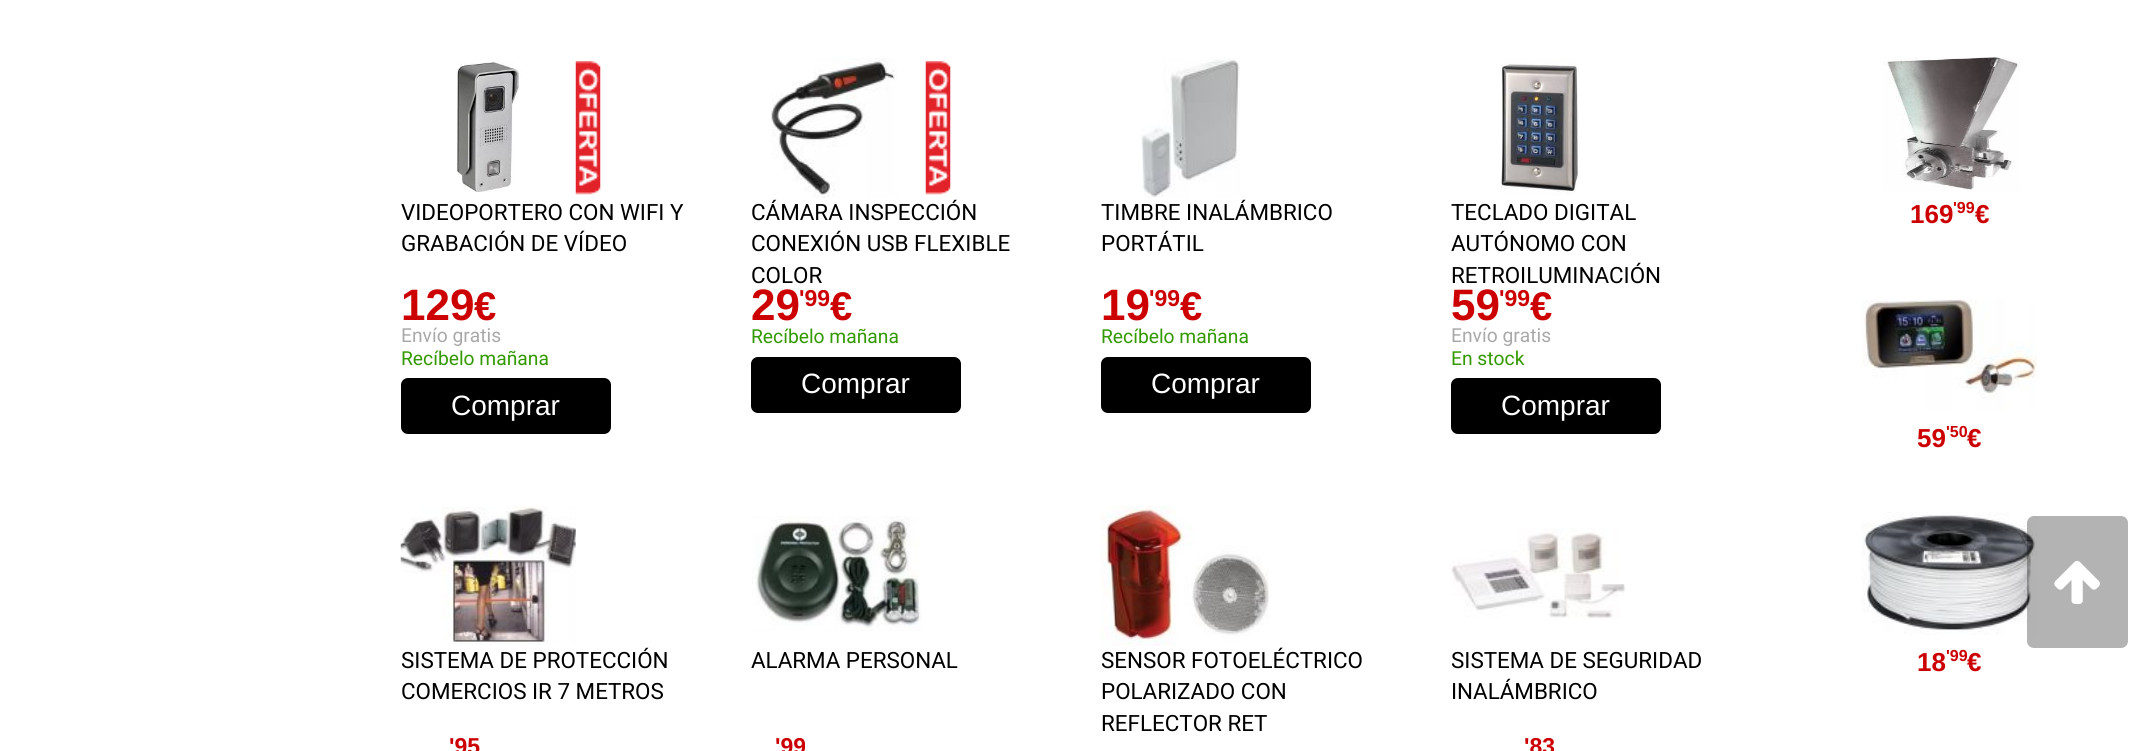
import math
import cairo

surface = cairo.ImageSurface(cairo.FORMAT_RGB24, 2148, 751)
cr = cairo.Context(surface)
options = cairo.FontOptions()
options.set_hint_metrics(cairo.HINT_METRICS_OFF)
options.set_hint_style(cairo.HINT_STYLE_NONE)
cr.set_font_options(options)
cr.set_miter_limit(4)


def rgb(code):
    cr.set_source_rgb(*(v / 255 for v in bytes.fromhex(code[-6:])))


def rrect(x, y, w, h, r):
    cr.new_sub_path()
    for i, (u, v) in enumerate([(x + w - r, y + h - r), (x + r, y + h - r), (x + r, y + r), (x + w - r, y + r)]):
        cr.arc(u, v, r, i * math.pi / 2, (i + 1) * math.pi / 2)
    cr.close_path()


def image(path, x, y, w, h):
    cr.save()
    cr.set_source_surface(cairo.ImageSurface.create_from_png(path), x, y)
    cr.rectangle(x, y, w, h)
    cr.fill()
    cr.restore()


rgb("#ffffff")
cr.paint()
image("img/1.png", 457, 59, 64, 133)
image("img/2.png", 575, 61, 26, 134)
rgb("#000000")
rrect(403, 380, 206, 52, 5)
cr.fill_preserve()
cr.set_line_width(4)
cr.stroke()
image("img/3.png", 771, 58, 127, 140)
image("img/2.png", 925, 61, 26, 134)
rrect(753, 359, 206, 52, 5)
cr.fill_preserve()
cr.stroke()
image("img/4.png", 1141, 58, 99, 140)
rrect(1103, 359, 206, 52, 5)
cr.fill_preserve()
cr.stroke()
image("img/5.png", 1501, 58, 79, 137)
rrect(1453, 380, 206, 52, 5)
cr.fill_preserve()
cr.stroke()
image("img/6.png", 400, 506, 176, 139)
image("img/7.png", 752, 516, 169, 115)
image("img/8.png", 1101, 506, 168, 140)
image("img/9.png", 1451, 528, 175, 90)
image("img/10.png", 1882, 57, 139, 134)
image("img/11.png", 1862, 299, 175, 111)
image("img/12.png", 1862, 512, 175, 123)
cr.set_source_rgba(0, 0, 0, 0.3)
rrect(2027, 516, 101, 132, 7)
cr.fill()
image("img/13.png", 2054, 560, 46, 44)
cr.select_font_face("Roboto")
cr.set_font_size(22.4)
rgb("#000000")
cr.move_to(401, 220)
cr.show_text("VIDEOPORTERO CON WIFI Y")
cr.move_to(401, 251)
cr.show_text("GRABACIÓN DE VÍDEO")
cr.select_font_face("Liberation Sans", cairo.FONT_SLANT_NORMAL, cairo.FONT_WEIGHT_BOLD)
cr.set_font_size(44)
rgb("#cc0000")
cr.move_to(401, 320)
cr.show_text("129")
cr.set_font_size(40)
cr.move_to(474, 320)
cr.show_text("€")
cr.select_font_face("Roboto")
cr.set_font_size(19.25)
rgb("#a9a9a9")
cr.move_to(401, 342)
cr.show_text("Envío gratis")
rgb("#339900")
cr.move_to(401, 365)
cr.show_text("Recíbelo mañana")
cr.select_font_face("Liberation Sans")
cr.set_font_size(28)
rgb("#ffffff")
cr.move_to(451, 415)
cr.show_text("Comprar")
cr.select_font_face("Roboto")
cr.set_font_size(22.4)
rgb("#000000")
for x, y, s in [
    (751, 220, "CÁMARA INSPECCIÓN"),
    (751, 251, "CONEXIÓN USB FLEXIBLE"),
    (751, 283, "COLOR"),
]:
    cr.move_to(x, y)
    cr.show_text(s)
cr.select_font_face("Liberation Sans", cairo.FONT_SLANT_NORMAL, cairo.FONT_WEIGHT_BOLD)
cr.set_font_size(44)
rgb("#cc0000")
cr.move_to(751, 320)
cr.show_text("29")
cr.set_font_size(23)
cr.move_to(799, 306)
cr.show_text("'99")
cr.set_font_size(40)
cr.move_to(830, 320)
cr.show_text("€")
cr.select_font_face("Roboto")
cr.set_font_size(19.25)
rgb("#339900")
cr.move_to(751, 343)
cr.show_text("Recíbelo mañana")
cr.select_font_face("Liberation Sans")
cr.set_font_size(28)
rgb("#ffffff")
cr.move_to(801, 393)
cr.show_text("Comprar")
cr.select_font_face("Roboto")
cr.set_font_size(22.4)
rgb("#000000")
cr.move_to(1101, 220)
cr.show_text("TIMBRE INALÁMBRICO")
cr.move_to(1101, 251)
cr.show_text("PORTÁTIL")
cr.select_font_face("Liberation Sans", cairo.FONT_SLANT_NORMAL, cairo.FONT_WEIGHT_BOLD)
cr.set_font_size(44)
rgb("#cc0000")
cr.move_to(1101, 320)
cr.show_text("19")
cr.set_font_size(23)
cr.move_to(1149, 306)
cr.show_text("'99")
cr.set_font_size(40)
cr.move_to(1180, 320)
cr.show_text("€")
cr.select_font_face("Roboto")
cr.set_font_size(19.25)
rgb("#339900")
cr.move_to(1101, 343)
cr.show_text("Recíbelo mañana")
cr.select_font_face("Liberation Sans")
cr.set_font_size(28)
rgb("#ffffff")
cr.move_to(1151, 393)
cr.show_text("Comprar")
cr.select_font_face("Roboto")
cr.set_font_size(22.4)
rgb("#000000")
for x, y, s in [
    (1451, 220, "TECLADO DIGITAL"),
    (1451, 251, "AUTÓNOMO CON"),
    (1451, 283, "RETROILUMINACIÓN"),
]:
    cr.move_to(x, y)
    cr.show_text(s)
cr.select_font_face("Liberation Sans", cairo.FONT_SLANT_NORMAL, cairo.FONT_WEIGHT_BOLD)
cr.set_font_size(44)
rgb("#cc0000")
cr.move_to(1451, 320)
cr.show_text("59")
cr.set_font_size(23)
cr.move_to(1499, 306)
cr.show_text("'99")
cr.set_font_size(40)
cr.move_to(1530, 320)
cr.show_text("€")
cr.select_font_face("Roboto")
cr.set_font_size(19.25)
rgb("#a9a9a9")
cr.move_to(1451, 342)
cr.show_text("Envío gratis")
rgb("#339900")
cr.move_to(1451, 365)
cr.show_text("En stock")
cr.select_font_face("Liberation Sans")
cr.set_font_size(28)
rgb("#ffffff")
cr.move_to(1501, 415)
cr.show_text("Comprar")
cr.select_font_face("Roboto")
cr.set_font_size(22.4)
rgb("#000000")
cr.move_to(401, 668)
cr.show_text("SISTEMA DE PROTECCIÓN")
cr.move_to(401, 699)
cr.show_text("COMERCIOS IR 7 METROS")
cr.select_font_face("Liberation Sans", cairo.FONT_SLANT_NORMAL, cairo.FONT_WEIGHT_BOLD)
cr.set_font_size(23)
rgb("#cc0000")
cr.move_to(449, 754)
cr.show_text("'95")
cr.select_font_face("Roboto")
cr.set_font_size(22.4)
rgb("#000000")
cr.move_to(751, 668)
cr.show_text("ALARMA PERSONAL")
cr.select_font_face("Liberation Sans", cairo.FONT_SLANT_NORMAL, cairo.FONT_WEIGHT_BOLD)
cr.set_font_size(23)
rgb("#cc0000")
cr.move_to(775, 754)
cr.show_text("'99")
cr.select_font_face("Roboto")
cr.set_font_size(22.4)
rgb("#000000")
for x, y, s in [
    (1101, 668, "SENSOR FOTOELÉCTRICO"),
    (1101, 699, "POLARIZADO CON"),
    (1101, 731, "REFLECTOR RET"),
    (1451, 668, "SISTEMA DE SEGURIDAD"),
    (1451, 699, "INALÁMBRICO"),
]:
    cr.move_to(x, y)
    cr.show_text(s)
cr.select_font_face("Liberation Sans", cairo.FONT_SLANT_NORMAL, cairo.FONT_WEIGHT_BOLD)
cr.set_font_size(23)
rgb("#cc0000")
cr.move_to(1524, 754)
cr.show_text("'83")
cr.set_font_size(26)
cr.move_to(1910, 223)
cr.show_text("169")
cr.set_font_size(16)
cr.move_to(1953, 213)
cr.show_text("'99")
cr.set_font_size(26)
cr.move_to(1975, 223)
cr.show_text("€")
cr.move_to(1917, 447)
cr.show_text("59")
cr.set_font_size(16)
cr.move_to(1946, 437)
cr.show_text("'50")
cr.set_font_size(26)
cr.move_to(1967, 447)
cr.show_text("€")
cr.move_to(1917, 671)
cr.show_text("18")
cr.set_font_size(16)
cr.move_to(1946, 661)
cr.show_text("'99")
cr.set_font_size(26)
cr.move_to(1967, 671)
cr.show_text("€")
surface.write_to_png("page.png")
